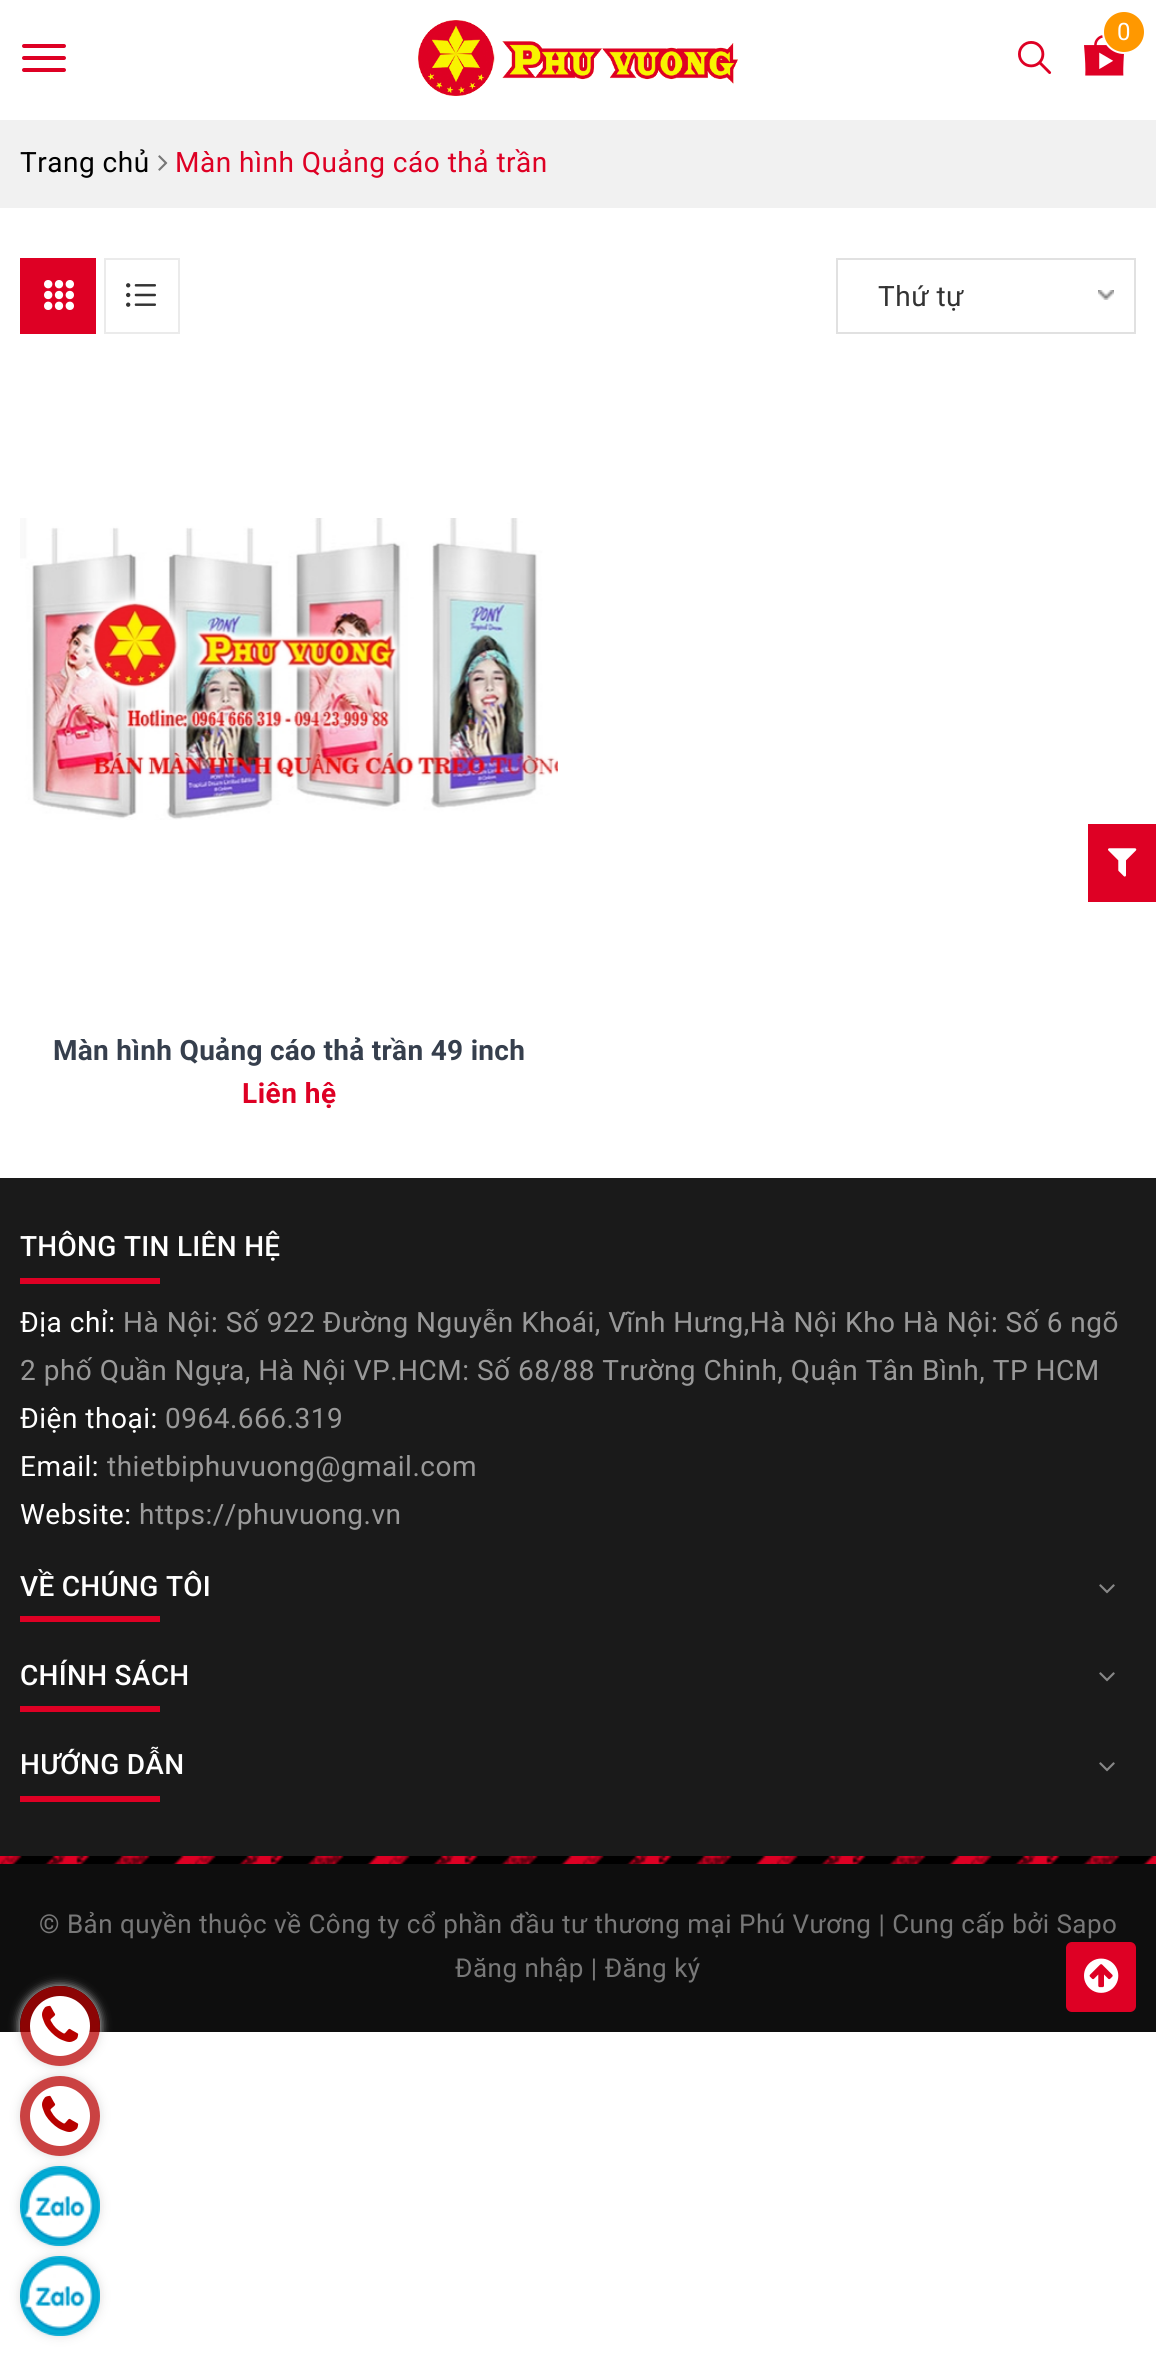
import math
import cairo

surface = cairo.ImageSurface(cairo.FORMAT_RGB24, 1156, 2355)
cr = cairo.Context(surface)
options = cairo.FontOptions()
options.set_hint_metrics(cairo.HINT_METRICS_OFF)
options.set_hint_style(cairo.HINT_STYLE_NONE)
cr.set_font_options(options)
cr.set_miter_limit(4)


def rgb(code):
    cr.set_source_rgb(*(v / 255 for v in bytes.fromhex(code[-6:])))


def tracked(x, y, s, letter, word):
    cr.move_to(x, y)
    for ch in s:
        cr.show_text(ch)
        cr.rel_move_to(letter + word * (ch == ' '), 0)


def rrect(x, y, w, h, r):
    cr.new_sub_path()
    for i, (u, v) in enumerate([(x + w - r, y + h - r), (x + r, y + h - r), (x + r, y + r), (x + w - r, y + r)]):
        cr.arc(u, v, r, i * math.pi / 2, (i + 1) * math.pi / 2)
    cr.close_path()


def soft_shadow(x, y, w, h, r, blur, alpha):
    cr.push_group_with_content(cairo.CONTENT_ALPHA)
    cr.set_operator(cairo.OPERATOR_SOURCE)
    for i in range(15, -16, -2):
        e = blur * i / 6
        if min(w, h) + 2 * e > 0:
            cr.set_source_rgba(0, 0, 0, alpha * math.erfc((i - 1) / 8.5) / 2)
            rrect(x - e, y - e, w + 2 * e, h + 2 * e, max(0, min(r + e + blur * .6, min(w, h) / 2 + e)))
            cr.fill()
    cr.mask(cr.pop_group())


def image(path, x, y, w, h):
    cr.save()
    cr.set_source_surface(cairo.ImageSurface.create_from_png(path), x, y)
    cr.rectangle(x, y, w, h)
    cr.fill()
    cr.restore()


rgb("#ffffff")
cr.paint()
image("img/1.png", 418, 20, 320, 76)
image("img/2.png", 1084, 35, 40, 41)
rgb("#ff9800")
cr.arc(1124, 32, 21, 0, 2 * math.pi)
cr.fill_preserve()
rgb("#ffffff")
cr.stroke()
image("img/3.png", 1018, 41, 34, 33)
rgb("#de0024")
rrect(22, 44, 44, 4, 2)
cr.fill()
rrect(22, 56, 44, 4, 2)
cr.fill()
rrect(22, 68, 44, 4, 2)
cr.fill()
rgb("#f1f1f1")
cr.rectangle(0, 120, 1156, 88)
cr.fill()
image("img/4.png", 158, 155, 10, 16)
rgb("#de0024")
cr.rectangle(20, 258, 76, 76)
cr.fill()
image("img/5.png", 44, 280, 30, 30)
cr.rectangle(105, 259, 74, 74)
rgb("#ebebeb")
cr.stroke()
image("img/6.png", 126, 283, 30, 24)
image("img/7.png", 1098, 290, 16, 10)
cr.rectangle(837, 259, 298, 74)
rgb("#e1e1e1")
cr.stroke()
image("img/8.png", 20, 518, 538, 302)
rgb("#de0024")
cr.rectangle(1088, 824, 68, 78)
cr.fill()
image("img/9.png", 1108, 848, 29, 29)
rgb("#1a1a1a")
cr.rectangle(0, 1178, 1156, 678)
cr.fill()
rgb("#de0024")
cr.rectangle(20, 1278, 140, 6)
cr.fill()
image("img/10.png", 1099, 1584, 16, 10)
cr.rectangle(20, 1616, 140, 6)
cr.fill()
image("img/10.png", 1099, 1672, 16, 10)
cr.rectangle(20, 1706, 140, 6)
cr.fill()
image("img/10.png", 1099, 1762, 16, 10)
cr.rectangle(20, 1796, 140, 6)
cr.fill()
cr.rectangle(0, 1856, 1156, 8)
cr.fill()
image("img/11.png", 0, 1856, 1154, 8)
rgb("#0e0e0e")
cr.rectangle(0, 1864, 1156, 168)
cr.fill()
rgb("#de0024")
rrect(1066, 1942, 70, 70, 6)
cr.fill()
image("img/12.png", 1084, 1958, 35, 35)
cr.save()
cr.set_fill_rule(cairo.FILL_RULE_EVEN_ODD)
cr.new_path()
cr.move_to(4, 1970)
cr.line_to(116, 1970)
cr.line_to(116, 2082)
cr.line_to(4, 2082)
cr.close_path()
cr.move_to(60, 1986)
cr.curve_to(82, 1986, 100, 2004, 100, 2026)
cr.curve_to(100, 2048, 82, 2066, 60, 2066)
cr.curve_to(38, 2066, 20, 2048, 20, 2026)
cr.curve_to(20, 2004, 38, 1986, 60, 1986)
cr.close_path()
cr.clip()
rgb("#dddddd")
soft_shadow(20, 1986, 80, 80, 40, 5, 1)
cr.restore()
cr.set_source_rgba(0.718, 0.004, 0, 0.74)
cr.arc(60, 2026, 40, 0, 2 * math.pi)
cr.fill()
rgb("#ffffff")
cr.arc(60, 2026, 30, 0, 2 * math.pi)
cr.fill()
image("img/13.png", 42, 2005, 37, 37)
cr.save()
cr.set_fill_rule(cairo.FILL_RULE_EVEN_ODD)
cr.new_path()
cr.move_to(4, 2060)
cr.line_to(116, 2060)
cr.line_to(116, 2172)
cr.line_to(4, 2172)
cr.close_path()
cr.move_to(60, 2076)
cr.curve_to(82, 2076, 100, 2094, 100, 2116)
cr.curve_to(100, 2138, 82, 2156, 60, 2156)
cr.curve_to(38, 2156, 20, 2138, 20, 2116)
cr.curve_to(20, 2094, 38, 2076, 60, 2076)
cr.close_path()
cr.clip()
rgb("#dddddd")
soft_shadow(20, 2076, 80, 80, 40, 5, 1)
cr.restore()
cr.set_source_rgba(0.718, 0.004, 0, 0.74)
cr.arc(60, 2116, 40, 0, 2 * math.pi)
cr.fill()
rgb("#ffffff")
cr.arc(60, 2116, 30, 0, 2 * math.pi)
cr.fill()
image("img/13.png", 42, 2095, 37, 37)
rgb("#dddddd")
soft_shadow(20, 2166, 80, 80, 40, 5, 1)
rgb("#02acd3")
cr.arc(60, 2206, 40, 0, 2 * math.pi)
cr.fill()
image("img/14.png", 20, 2166, 80, 80)
rgb("#dddddd")
soft_shadow(20, 2256, 80, 80, 40, 5, 1)
rgb("#02acd3")
cr.arc(60, 2296, 40, 0, 2 * math.pi)
cr.fill()
image("img/14.png", 20, 2256, 80, 80)
cr.select_font_face("Roboto")
cr.set_font_size(24)
rgb("#ffffff")
tracked(1117, 40, "0", 0.5, 0)
cr.set_font_size(28)
rgb("#000000")
tracked(20, 172, "Trang chủ", 0.5, 0)
rgb("#de0024")
tracked(175, 172, "Màn hình Quảng cáo thả trần", 0.5, 0)
rgb("#333333")
tracked(878, 306, "Thứ tự", 0.5, 0)
cr.select_font_face("Roboto", cairo.FONT_SLANT_NORMAL, cairo.FONT_WEIGHT_BOLD)
rgb("#363f4d")
tracked(53, 1060, "Màn hình Quảng cáo thả trần 49 inch", 0.3, 0)
rgb("#de0024")
tracked(242, 1103, "Liên hệ", 0.5, 0)
cr.select_font_face("Roboto Medium")
rgb("#ffffff")
tracked(20, 1256, "THÔNG TIN LIÊN HỆ", 0.3, 0)
cr.select_font_face("Roboto")
tracked(20, 1332, "Địa chỉ:", 0.5, 0)
rgb("#999999")
tracked(123, 1332, "Hà Nội: Số 922 Đường Nguyễn Khoái, Vĩnh Hưng,Hà Nội Kho Hà Nội: Số 6 ngõ", 0.5, 0)
tracked(20, 1380, "2 phố Quần Ngựa, Hà Nội VP.HCM: Số 68/88 Trường Chinh, Quận Tân Bình, TP HCM", 0.5, 0)
rgb("#ffffff")
tracked(20, 1428, "Điện thoại:", 0.5, 0)
rgb("#999999")
tracked(165, 1428, "0964.666.319", 0.5, 0)
rgb("#ffffff")
tracked(20, 1476, "Email:", 0.5, 0)
rgb("#999999")
tracked(107, 1476, "thietbiphuvuong@gmail.com", 0.5, 0)
rgb("#ffffff")
tracked(20, 1524, "Website:", 0.5, 0)
rgb("#999999")
tracked(139, 1524, "https://phuvuong.vn", 0.5, 0)
cr.select_font_face("Roboto Medium")
rgb("#ffffff")
for x, y, s in [
    (20, 1596, "VỀ CHÚNG TÔI"),
    (20, 1685, "CHÍNH SÁCH"),
    (20, 1774, "HƯỚNG DẪN"),
]:
    tracked(x, y, s, 0.3, 0)
cr.select_font_face("Roboto")
cr.set_font_size(26)
rgb("#787878")
tracked(39, 1933, "© Bản quyền thuộc về Công ty cổ phần đầu tư thương mại Phú Vương | Cung cấp bởi Sapo", 0.5, 0)
tracked(455, 1977, "Đăng nhập | Đăng ký", 0.5, 0)
surface.write_to_png("page.png")
